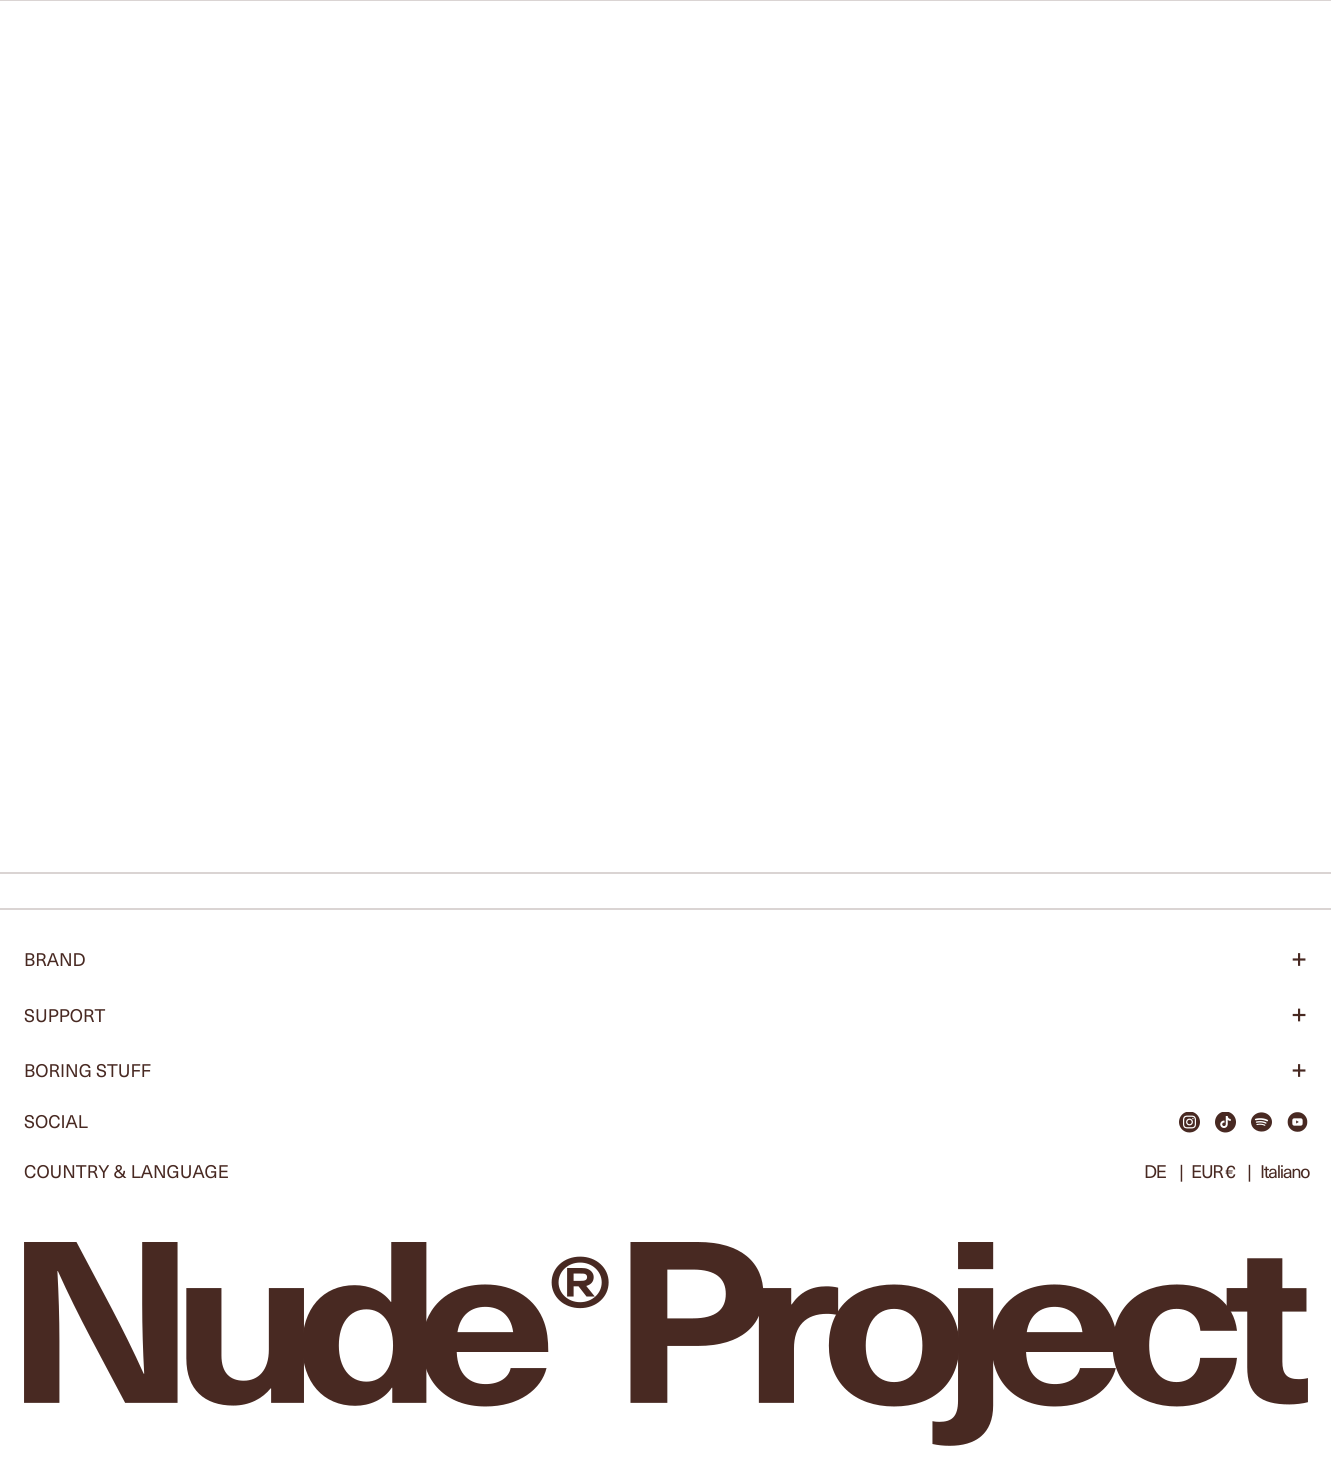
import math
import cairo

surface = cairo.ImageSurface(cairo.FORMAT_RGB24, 1331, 1463)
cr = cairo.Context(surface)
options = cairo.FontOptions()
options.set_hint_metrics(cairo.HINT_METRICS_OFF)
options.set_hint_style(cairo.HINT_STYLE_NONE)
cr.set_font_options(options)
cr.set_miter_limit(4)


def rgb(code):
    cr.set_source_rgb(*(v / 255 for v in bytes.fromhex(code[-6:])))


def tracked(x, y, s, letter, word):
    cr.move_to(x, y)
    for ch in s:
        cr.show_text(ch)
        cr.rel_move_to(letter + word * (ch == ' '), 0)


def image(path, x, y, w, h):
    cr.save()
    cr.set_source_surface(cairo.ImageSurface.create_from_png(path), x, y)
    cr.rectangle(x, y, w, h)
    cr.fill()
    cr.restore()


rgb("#ffffff")
cr.paint()
for x, y, w, h, color in [
    (0, 0, 1331, 1, "#dad4d3"),
    (0, 872, 1331, 2, "#dad4d3"),
    (0, 908, 1331, 2, "#dad4d3"),
]:
    rgb(color)
    cr.rectangle(x, y, w, h)
    cr.fill()
image("img/1.png", 1292, 953, 14, 13)
image("img/2.png", 1292, 1008, 14, 14)
image("img/1.png", 1292, 1064, 14, 13)
image("img/3.png", 1179, 1112, 21, 21)
image("img/4.png", 1215, 1112, 21, 21)
image("img/5.png", 1251, 1112, 21, 20)
image("img/6.png", 1287, 1112, 21, 20)
image("img/7.png", 24, 1242, 1284, 204)
cr.select_font_face("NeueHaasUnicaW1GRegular")
cr.set_font_size(18)
rgb("#482922")
for x, y, s in [
    (24, 966, "BRAND"),
    (24, 1022, "SUPPORT"),
    (24, 1077, "BORING STUFF"),
    (24, 1128, "SOCIAL"),
    (24, 1178, "COUNTRY & LANGUAGE"),
]:
    cr.move_to(x, y)
    cr.show_text(s)
for x, y, s in [
    (1144, 1178, "DE"),
    (1179, 1178, "|"),
    (1191, 1178, "EUR €"),
    (1247, 1178, "|"),
    (1260, 1178, "Italiano"),
]:
    tracked(x, y, s, -1.25, 0)
surface.write_to_png("page.png")
